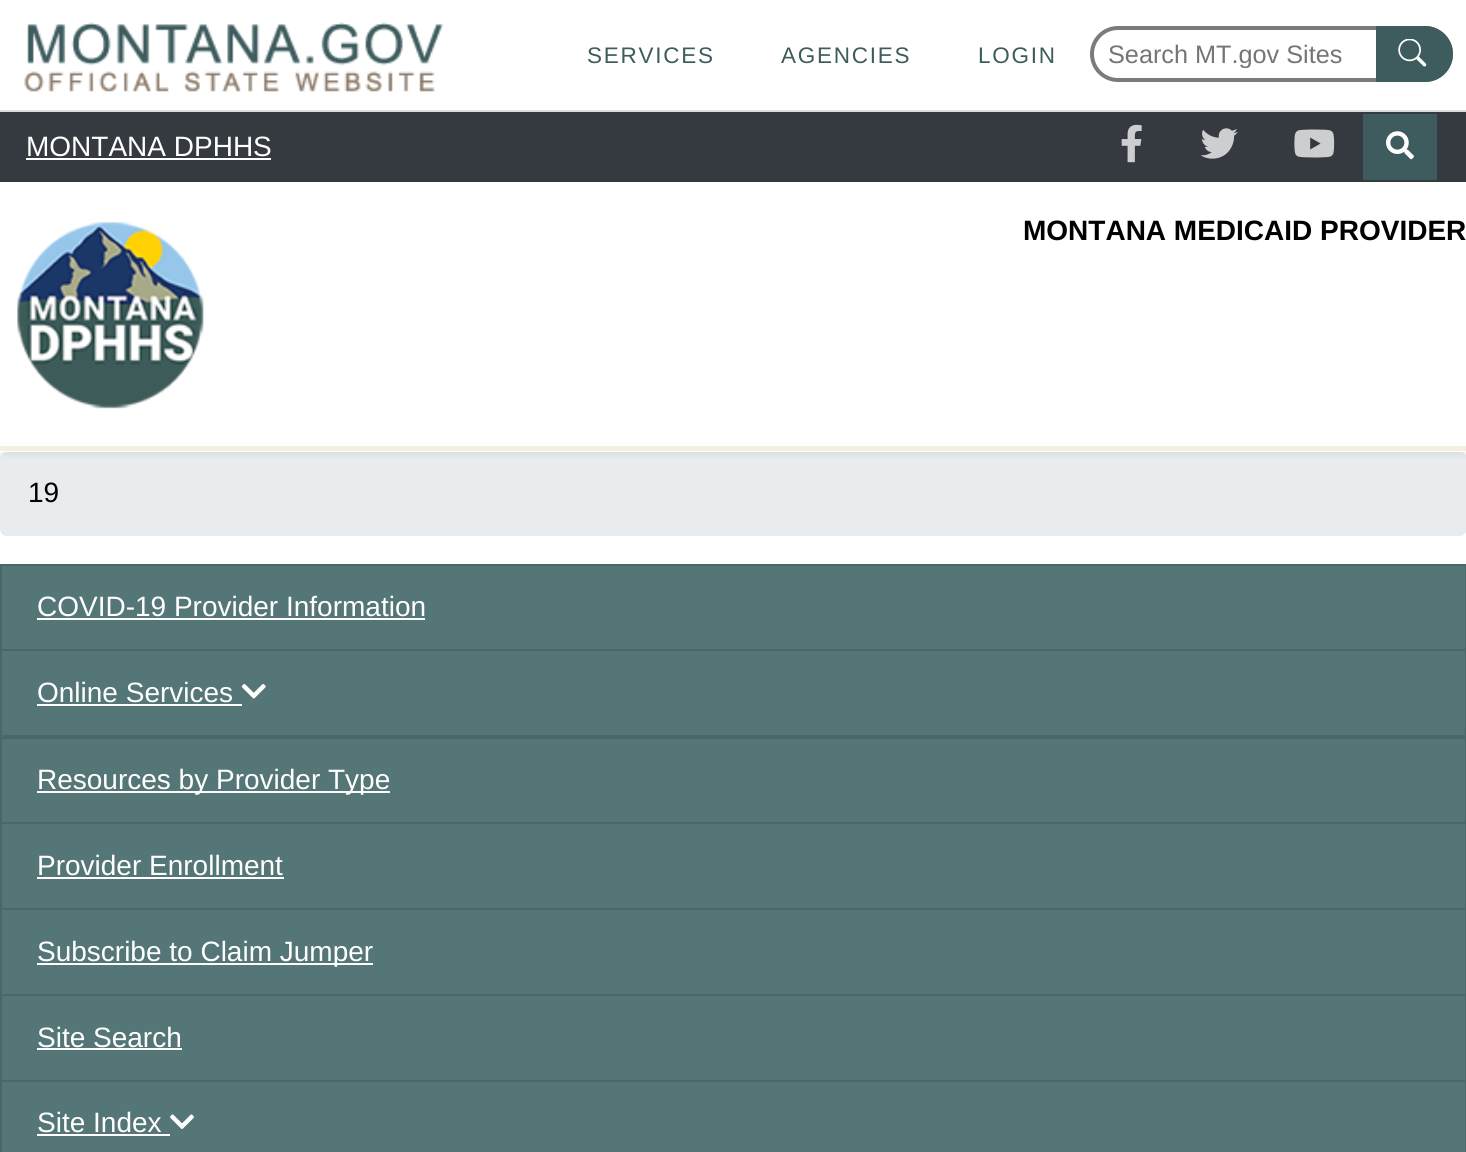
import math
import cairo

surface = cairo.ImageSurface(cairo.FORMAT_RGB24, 1466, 1152)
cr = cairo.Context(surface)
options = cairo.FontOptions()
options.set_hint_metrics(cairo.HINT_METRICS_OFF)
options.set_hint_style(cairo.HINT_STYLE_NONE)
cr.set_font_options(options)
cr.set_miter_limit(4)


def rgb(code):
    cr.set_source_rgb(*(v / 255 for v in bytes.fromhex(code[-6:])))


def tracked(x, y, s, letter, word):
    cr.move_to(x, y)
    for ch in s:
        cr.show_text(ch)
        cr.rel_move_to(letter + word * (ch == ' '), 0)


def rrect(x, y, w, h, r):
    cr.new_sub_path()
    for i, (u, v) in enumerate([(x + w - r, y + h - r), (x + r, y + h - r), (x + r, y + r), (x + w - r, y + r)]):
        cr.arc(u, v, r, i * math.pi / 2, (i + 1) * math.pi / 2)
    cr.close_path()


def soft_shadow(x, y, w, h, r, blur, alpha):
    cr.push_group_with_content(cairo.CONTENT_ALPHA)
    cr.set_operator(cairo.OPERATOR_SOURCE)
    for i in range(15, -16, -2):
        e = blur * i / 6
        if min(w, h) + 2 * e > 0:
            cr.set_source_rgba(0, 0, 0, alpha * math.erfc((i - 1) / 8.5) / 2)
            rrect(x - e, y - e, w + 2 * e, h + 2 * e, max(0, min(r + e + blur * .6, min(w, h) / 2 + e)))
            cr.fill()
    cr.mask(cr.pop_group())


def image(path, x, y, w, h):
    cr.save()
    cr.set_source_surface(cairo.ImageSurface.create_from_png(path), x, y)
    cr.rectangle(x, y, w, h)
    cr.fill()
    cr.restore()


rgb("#ffffff")
cr.paint()
rgb("#dbdcde")
cr.rectangle(0, 110, 1466, 2)
cr.fill()
image("img/1.png", 24, 22, 420, 70)
rrect(1092, 28, 359, 52, 26)
rgb("#7b7b7b")
cr.set_line_width(4)
cr.stroke()
rgb("#3e5c5e")
cr.new_path()
cr.move_to(1376, 26)
cr.line_to(1425, 26)
cr.curve_to(1440.5, 26, 1453, 38.5, 1453, 54)
cr.curve_to(1453, 69.5, 1440.5, 82, 1425, 82)
cr.line_to(1376, 82)
cr.close_path()
cr.fill()
image("img/2.png", 1398, 39, 29, 28)
rgb("#343a40")
cr.rectangle(0, 112, 1466, 70)
cr.fill()
rgb("#ffffff")
cr.rectangle(26, 158, 245, 2)
cr.fill()
image("img/3.png", 1121, 124, 21, 39)
image("img/4.png", 1200, 128, 38, 31)
image("img/5.png", 1294, 129, 41, 29)
rgb("#3e5b5d")
cr.rectangle(1363, 114, 74, 66)
cr.fill()
image("img/6.png", 1386, 131, 28, 29)
rgb("#e9ecef")
rrect(0, 452, 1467, 84, 7)
cr.fill()
rgb("#000000")
soft_shadow(0, 186, 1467, 269, 0, 3.5, 0.07)
rgb("#ffffff")
cr.rectangle(0, 182, 1466, 270)
cr.fill()
rgb("#f5f0dd")
cr.rectangle(0, 446, 1466, 5)
cr.fill()
image("img/7.png", 17, 221, 187, 188)
rgb("#557677")
cr.rectangle(1, 565, 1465, 85)
cr.fill_preserve()
rgb("#4a6768")
cr.set_line_width(2)
cr.stroke()
rgb("#ffffff")
cr.rectangle(37, 618, 388, 2)
cr.fill()
rgb("#557677")
cr.rectangle(0, 651, 1466, 86)
cr.fill()
rgb("#4a6768")
cr.new_path()
cr.move_to(1466, 651)
cr.line_to(1466, 737)
cr.line_to(1465, 735)
cr.line_to(1465, 651)
cr.close_path()
cr.fill()
cr.set_source_rgba(0, 0, 0, 0.12)
cr.new_path()
cr.move_to(1466, 737)
cr.line_to(0, 737)
cr.line_to(2, 735)
cr.line_to(1465, 735)
cr.close_path()
cr.fill()
cr.new_path()
cr.move_to(0, 737)
cr.line_to(0, 651)
cr.line_to(2, 651)
cr.line_to(2, 735)
cr.close_path()
cr.fill()
rgb("#ffffff")
cr.rectangle(37, 704, 205, 2)
cr.fill()
image("img/8.png", 241, 684, 25, 15)
rgb("#557677")
cr.rectangle(1, 738, 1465, 85)
cr.fill_preserve()
rgb("#4a6768")
cr.stroke()
rgb("#ffffff")
cr.rectangle(37, 791, 353, 2)
cr.fill()
rgb("#557677")
cr.rectangle(0, 824, 1466, 258)
cr.fill()
rgb("#4a6768")
cr.new_path()
cr.move_to(1466, 824)
cr.line_to(1466, 910)
cr.line_to(1465, 908)
cr.line_to(1465, 824)
cr.close_path()
cr.fill()
cr.set_source_rgba(0, 0, 0, 0.12)
cr.new_path()
cr.move_to(1466, 910)
cr.line_to(0, 910)
cr.line_to(2, 908)
cr.line_to(1465, 908)
cr.close_path()
cr.fill()
cr.new_path()
cr.move_to(0, 910)
cr.line_to(0, 824)
cr.line_to(2, 824)
cr.line_to(2, 908)
cr.close_path()
cr.fill()
rgb("#ffffff")
cr.rectangle(37, 877, 247, 2)
cr.fill()
rgb("#4a6768")
cr.new_path()
cr.move_to(1466, 910)
cr.line_to(1466, 996)
cr.line_to(1465, 994)
cr.line_to(1465, 910)
cr.close_path()
cr.fill()
cr.set_source_rgba(0, 0, 0, 0.12)
cr.new_path()
cr.move_to(1466, 996)
cr.line_to(0, 996)
cr.line_to(2, 994)
cr.line_to(1465, 994)
cr.close_path()
cr.fill()
cr.new_path()
cr.move_to(0, 996)
cr.line_to(0, 910)
cr.line_to(2, 910)
cr.line_to(2, 994)
cr.close_path()
cr.fill()
rgb("#ffffff")
cr.rectangle(37, 963, 336, 2)
cr.fill()
rgb("#4a6768")
cr.new_path()
cr.move_to(1466, 996)
cr.line_to(1466, 1082)
cr.line_to(1465, 1080)
cr.line_to(1465, 996)
cr.close_path()
cr.fill()
cr.set_source_rgba(0, 0, 0, 0.12)
cr.new_path()
cr.move_to(1466, 1082)
cr.line_to(0, 1082)
cr.line_to(2, 1080)
cr.line_to(1465, 1080)
cr.close_path()
cr.fill()
cr.new_path()
cr.move_to(0, 1082)
cr.line_to(0, 996)
cr.line_to(2, 996)
cr.line_to(2, 1080)
cr.close_path()
cr.fill()
rgb("#ffffff")
cr.rectangle(37, 1048, 145, 2)
cr.fill()
rgb("#557677")
cr.rectangle(2, 1082, 1463, 70)
cr.fill()
rgb("#4a6768")
cr.new_path()
cr.move_to(1466, 1082)
cr.line_to(1466, 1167)
cr.line_to(1465, 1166)
cr.line_to(1465, 1082)
cr.close_path()
cr.fill()
cr.new_path()
cr.move_to(0, 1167)
cr.line_to(0, 1082)
cr.line_to(2, 1082)
cr.line_to(2, 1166)
cr.close_path()
cr.fill()
rgb("#ffffff")
cr.rectangle(37, 1134, 133, 2)
cr.fill()
image("img/9.png", 170, 1114, 24, 15)
cr.select_font_face("Liberation Sans")
cr.set_font_size(22.5)
rgb("#3e5b5d")
for x, y, s in [
    (587, 63, "SERVICES"),
    (781, 63, "AGENCIES"),
    (978, 63, "LOGIN"),
]:
    tracked(x, y, s, 1.75, 0)
cr.save()
cr.rectangle(1108, 40, 327, 28)
cr.clip()
cr.set_font_size(25.25)
rgb("#757575")
cr.move_to(1108, 63)
cr.show_text("Search MT.gov Sites")
cr.restore()
cr.set_font_size(28)
rgb("#ffffff")
cr.move_to(26, 156)
cr.show_text("MONTANA DPHHS")
cr.select_font_face("Liberation Sans", cairo.FONT_SLANT_NORMAL, cairo.FONT_WEIGHT_BOLD)
rgb("#000000")
cr.move_to(1023, 240)
cr.show_text("MONTANA MEDICAID PROVIDER")
cr.select_font_face("Liberation Sans")
cr.move_to(28, 502)
cr.show_text("19")
rgb("#ffffff")
for x, y, s in [
    (37, 616, "COVID-19 Provider Information"),
    (37, 702, "Online Services"),
    (37, 789, "Resources by Provider Type"),
    (37, 875, "Provider Enrollment"),
    (37, 961, "Subscribe to Claim Jumper"),
    (37, 1047, "Site Search"),
    (37, 1132, "Site Index"),
]:
    cr.move_to(x, y)
    cr.show_text(s)
surface.write_to_png("page.png")
